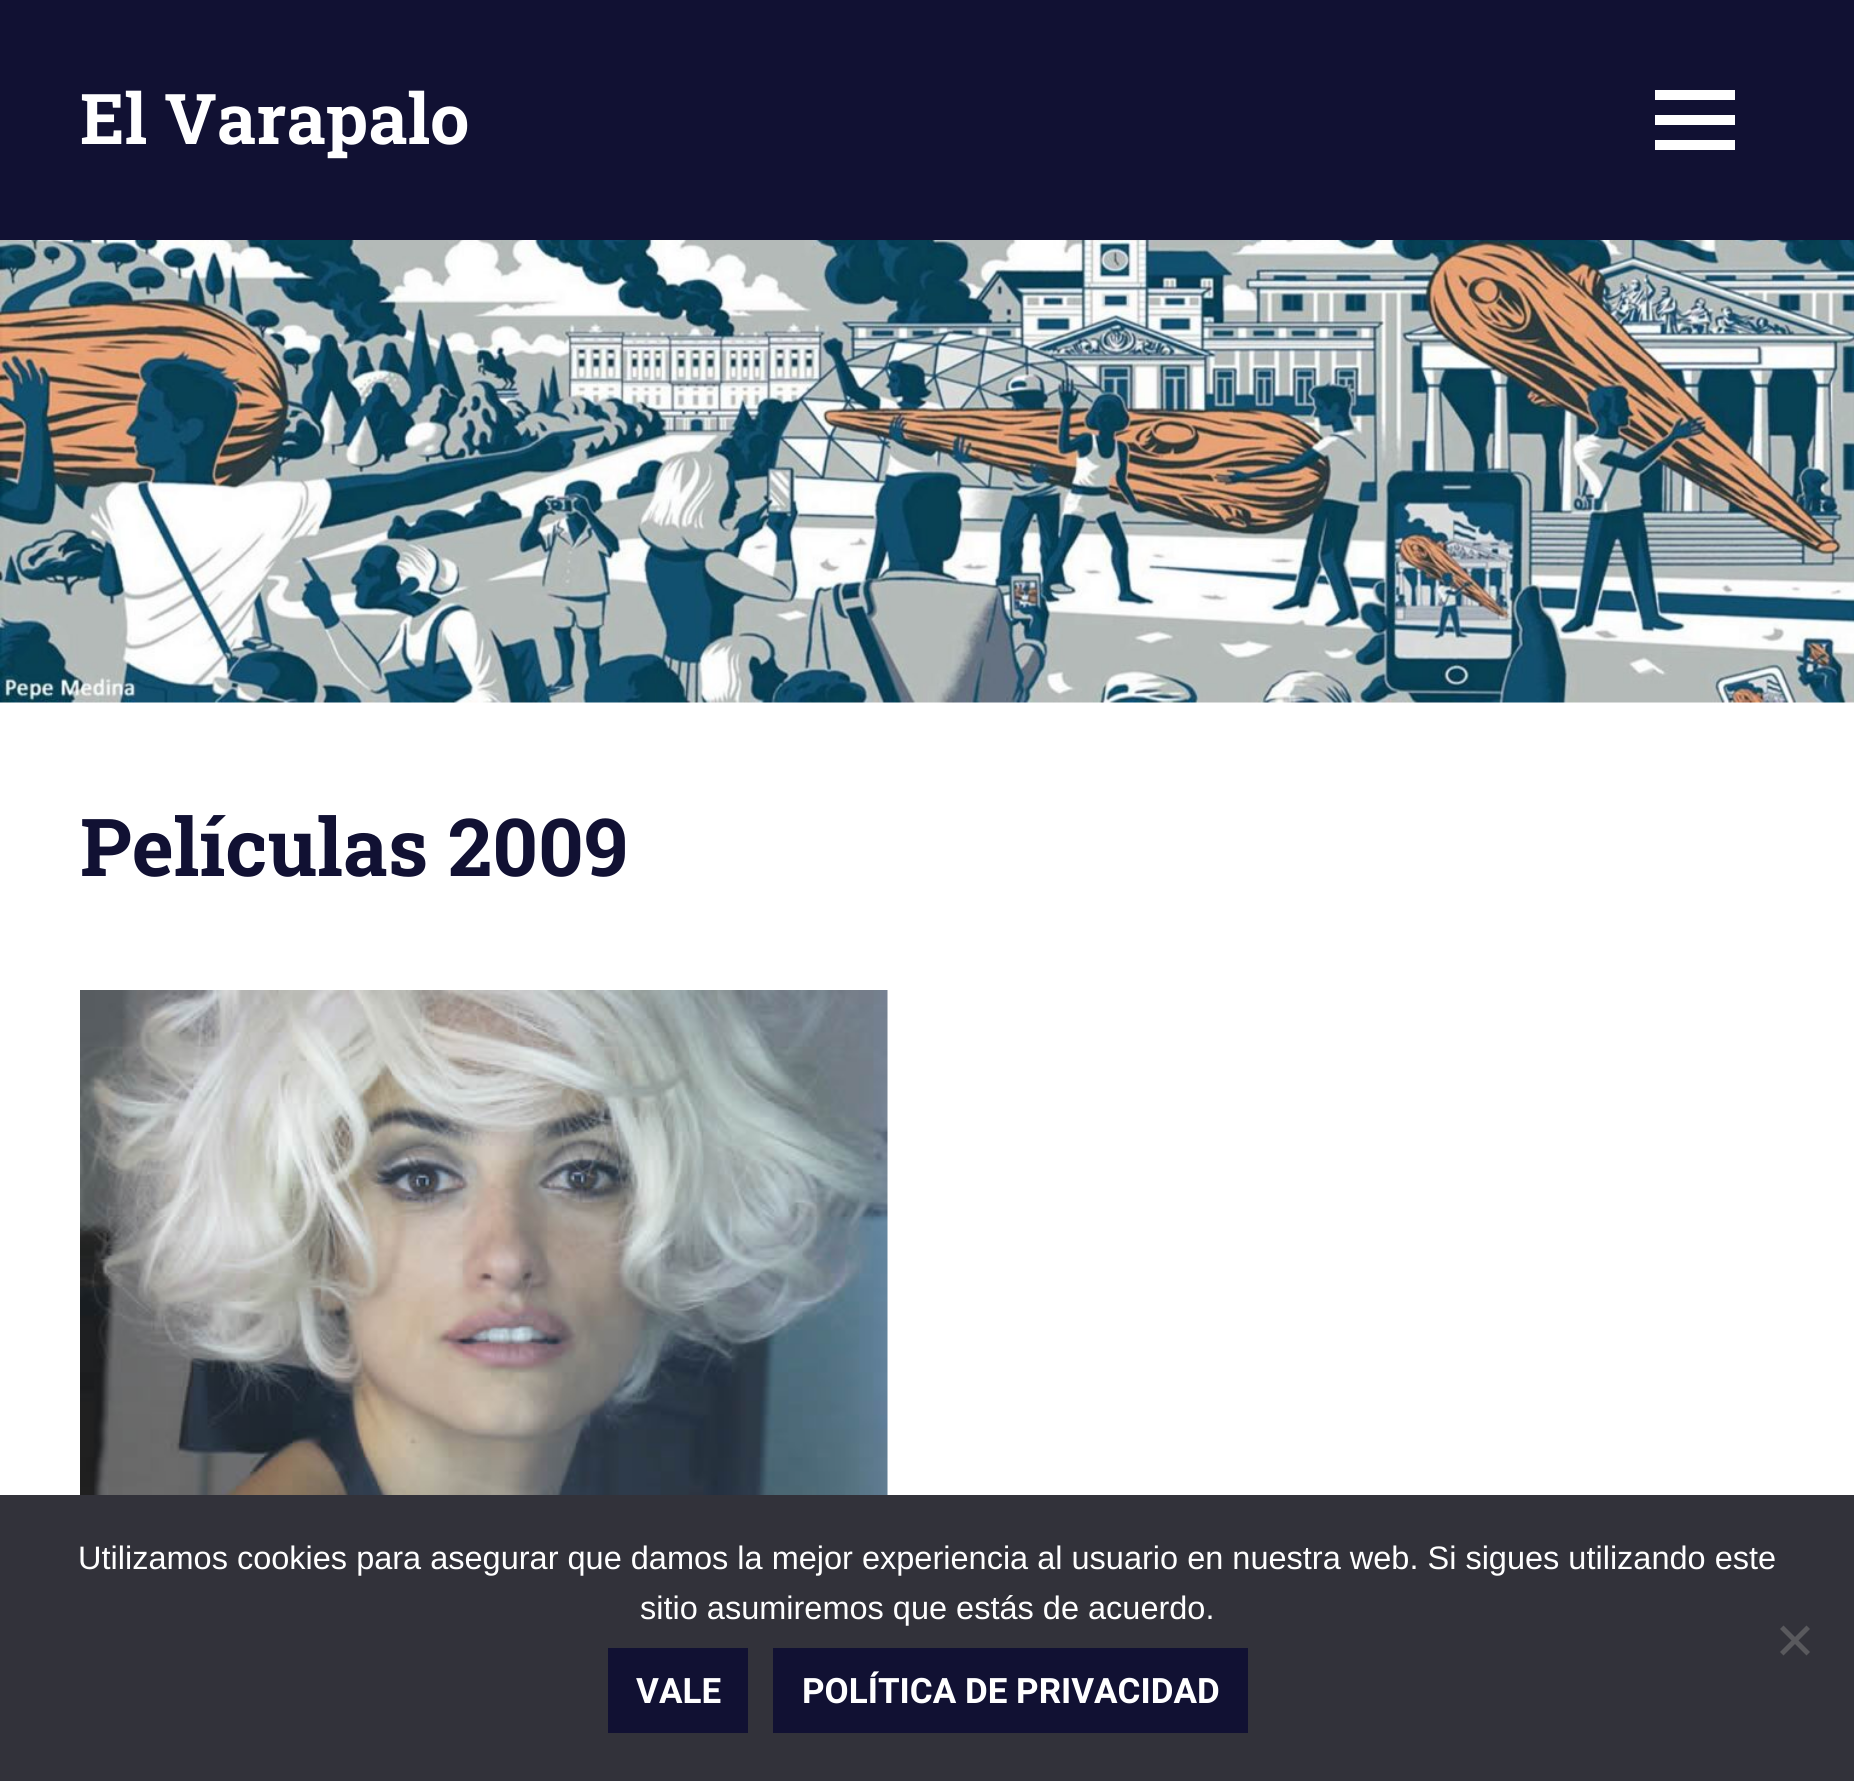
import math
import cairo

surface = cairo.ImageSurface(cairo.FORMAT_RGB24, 1854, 1781)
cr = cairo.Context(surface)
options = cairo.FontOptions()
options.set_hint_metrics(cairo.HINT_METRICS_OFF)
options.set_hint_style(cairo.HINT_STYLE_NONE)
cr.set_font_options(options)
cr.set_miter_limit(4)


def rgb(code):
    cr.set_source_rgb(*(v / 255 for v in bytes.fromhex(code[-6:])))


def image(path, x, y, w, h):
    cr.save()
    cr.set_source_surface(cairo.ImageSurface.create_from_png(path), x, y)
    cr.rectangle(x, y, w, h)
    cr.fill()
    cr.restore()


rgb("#ffffff")
cr.paint()
rgb("#111133")
cr.rectangle(0, 0, 1854, 240)
cr.fill()
image("img/1.png", 1655, 90, 80, 60)
image("img/2.png", 0, 240, 1854, 463)
image("img/3.png", 80, 990, 808, 505)
rgb("#32323a")
cr.rectangle(0, 1495, 1854, 286)
cr.fill()
rgb("#59595d")
cr.new_path()
cr.move_to(1806.5, 1625.5)
cr.line_to(1810, 1629)
cr.line_to(1783.5, 1655.5)
cr.line_to(1780, 1652)
cr.close_path()
cr.fill()
cr.new_path()
cr.move_to(1780, 1629)
cr.line_to(1783.5, 1625.5)
cr.line_to(1810, 1652)
cr.line_to(1806.5, 1655.5)
cr.close_path()
cr.fill()
rgb("#111133")
cr.rectangle(608, 1648, 140, 85)
cr.fill()
cr.rectangle(773, 1648, 475, 85)
cr.fill()
cr.select_font_face("Roboto Slab", cairo.FONT_SLANT_NORMAL, cairo.FONT_WEIGHT_BOLD)
cr.set_font_size(70)
rgb("#ffffff")
cr.move_to(80, 144)
cr.show_text("El Varapalo")
cr.set_font_size(80)
rgb("#111133")
cr.move_to(80, 876)
cr.show_text("Películas 2009")
cr.select_font_face("Liberation Sans")
cr.set_font_size(32.5)
rgb("#ffffff")
cr.move_to(78, 1569)
cr.show_text("Utilizamos cookies para asegurar que damos la mejor experiencia al usuario en nuestra web. Si sigues utilizando este")
cr.move_to(640, 1619)
cr.show_text("sitio asumiremos que estás de acuerdo.")
cr.select_font_face("Roboto", cairo.FONT_SLANT_NORMAL, cairo.FONT_WEIGHT_BOLD)
cr.set_font_size(35)
cr.move_to(636, 1703)
cr.show_text("VALE")
cr.move_to(802, 1703)
cr.show_text("POLÍTICA DE PRIVACIDAD")
surface.write_to_png("page.png")
